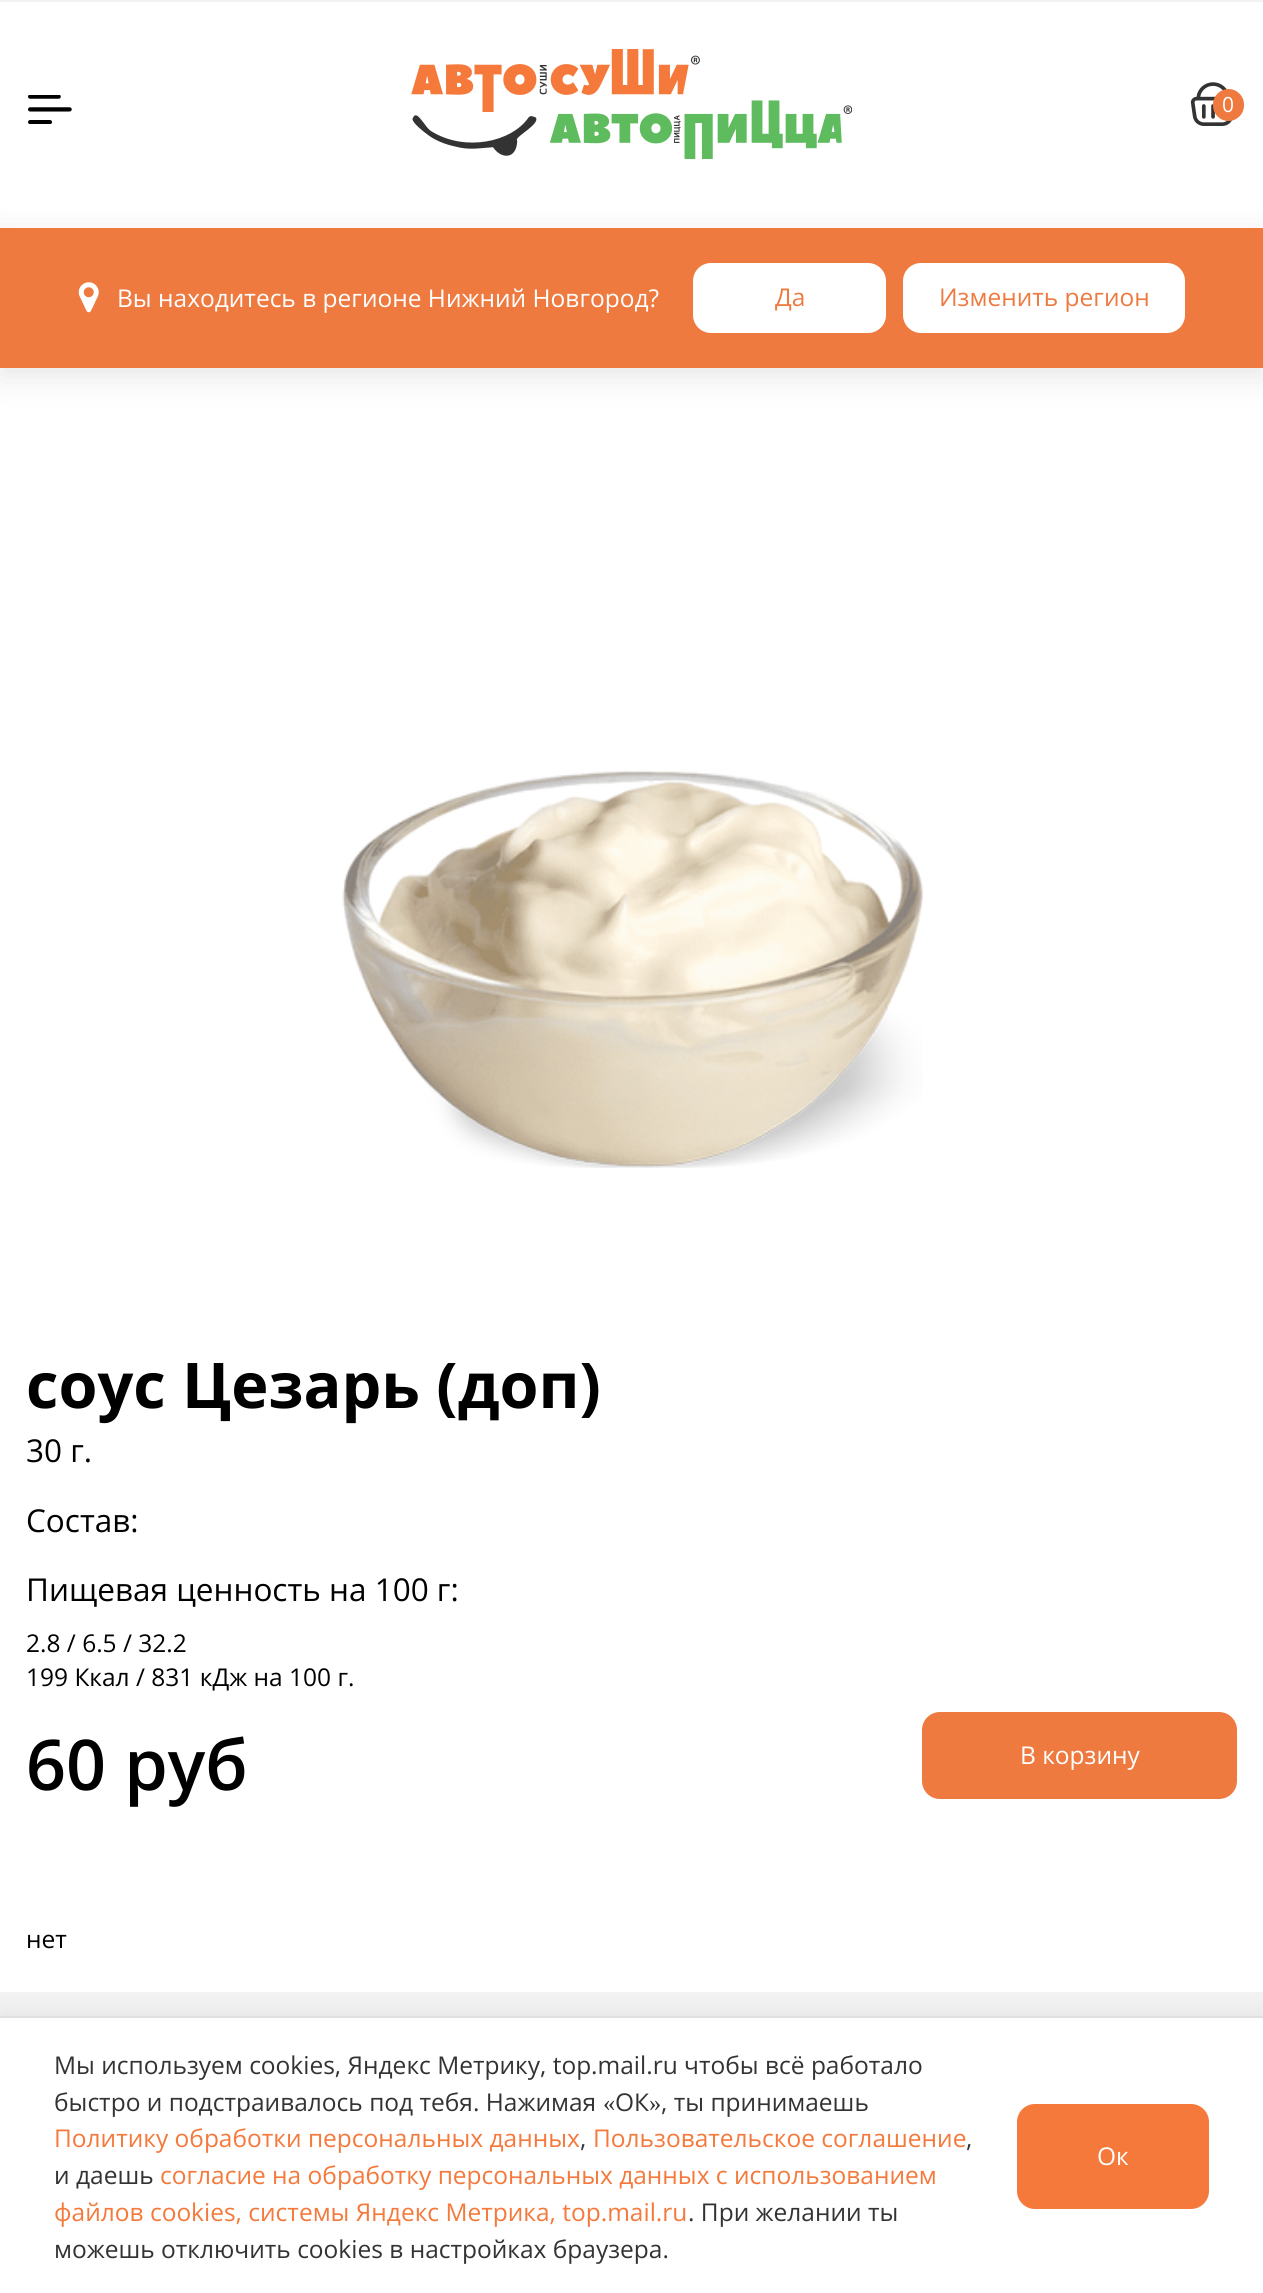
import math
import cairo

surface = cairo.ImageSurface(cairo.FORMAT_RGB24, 1263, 2293)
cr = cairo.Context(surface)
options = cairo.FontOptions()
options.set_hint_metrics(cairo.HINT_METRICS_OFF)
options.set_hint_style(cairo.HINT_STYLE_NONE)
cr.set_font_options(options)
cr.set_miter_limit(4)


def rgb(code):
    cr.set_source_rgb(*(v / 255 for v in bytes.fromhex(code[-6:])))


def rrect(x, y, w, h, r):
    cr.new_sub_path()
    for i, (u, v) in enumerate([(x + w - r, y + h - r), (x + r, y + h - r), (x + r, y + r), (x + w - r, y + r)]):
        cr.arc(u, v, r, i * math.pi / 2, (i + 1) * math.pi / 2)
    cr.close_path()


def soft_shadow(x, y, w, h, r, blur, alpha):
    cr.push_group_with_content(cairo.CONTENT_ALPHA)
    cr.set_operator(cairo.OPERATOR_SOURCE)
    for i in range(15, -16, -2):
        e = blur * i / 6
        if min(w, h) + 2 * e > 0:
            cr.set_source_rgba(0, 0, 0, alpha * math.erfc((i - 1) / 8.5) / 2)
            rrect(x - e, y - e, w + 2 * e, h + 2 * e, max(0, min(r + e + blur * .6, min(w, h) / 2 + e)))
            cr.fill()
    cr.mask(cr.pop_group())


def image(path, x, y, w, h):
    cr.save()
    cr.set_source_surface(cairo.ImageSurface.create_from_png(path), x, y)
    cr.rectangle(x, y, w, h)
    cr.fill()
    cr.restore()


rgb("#ffffff")
cr.paint()
rgb("#f2f2f2")
cr.rectangle(0, 0, 1263, 2)
cr.fill()
image("img/1.png", 28, 95, 44, 29)
image("img/2.png", 411, 49, 441, 110)
image("img/3.png", 1190, 82, 43, 44)
rgb("#ee7a40")
rrect(1213, 89, 31, 32, 15.5)
cr.fill()
rgb("#000000")
soft_shadow(0, 236, 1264, 140, 0, 16.5, 0.1)
rgb("#ee7a40")
cr.rectangle(0, 228, 1263, 140)
cr.fill()
image("img/4.png", 78, 282, 21, 31)
rgb("#ffffff")
rrect(693, 263, 193, 70, 18)
cr.fill()
rrect(903, 263, 282, 70, 18)
cr.fill()
image("img/5.png", 342, 770, 581, 398)
rgb("#ee7a40")
rrect(922, 1712, 315, 87, 18)
cr.fill()
rgb("#f2f2f2")
cr.rectangle(0, 1992, 1263, 24)
cr.fill()
rgb("#000000")
soft_shadow(0, 2013, 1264, 278, 0, 10.5, 0.06)
rgb("#ffffff")
cr.rectangle(0, 2018, 1263, 275)
cr.fill()
rgb("#e0e0e0")
cr.rectangle(0, 2016, 1263, 2)
cr.fill()
rgb("#f4793b")
rrect(1017, 2104, 192, 105, 18)
cr.fill()
cr.select_font_face("Open Sans")
cr.set_font_size(21)
rgb("#ffffff")
cr.move_to(1222, 112)
cr.show_text("0")
cr.set_font_size(24.5)
cr.move_to(117, 307)
cr.show_text("Вы находитесь в регионе Нижний Новгород?")
rgb("#ee7a40")
cr.move_to(775, 306)
cr.show_text("Да")
cr.move_to(939, 306)
cr.show_text("Изменить регион")
cr.select_font_face("Open Sans", cairo.FONT_SLANT_NORMAL, cairo.FONT_WEIGHT_BOLD)
cr.set_font_size(63)
rgb("#000000")
cr.move_to(26, 1408)
cr.show_text("соус Цезарь (доп)")
cr.select_font_face("Open Sans")
cr.set_font_size(31.5)
for x, y, s in [
    (26, 1462, "30 г."),
    (26, 1532, "Состав:"),
    (26, 1601, "Пищевая ценность на 100 г:"),
]:
    cr.move_to(x, y)
    cr.show_text(s)
cr.set_font_size(24.5)
cr.move_to(26, 1652)
cr.show_text("2.8 / 6.5 / 32.2")
cr.move_to(26, 1686)
cr.show_text("199 Ккал / 831 кДж на 100 г.")
cr.select_font_face("Open Sans SemiBold")
cr.set_font_size(70)
cr.move_to(26, 1790)
cr.show_text("60 руб")
cr.select_font_face("Open Sans")
cr.set_font_size(24.5)
rgb("#ffffff")
cr.move_to(1020, 1764)
cr.show_text("В корзину")
rgb("#000000")
cr.move_to(26, 1948)
cr.show_text("нет")
rgb("#333333")
cr.move_to(54, 2074)
cr.show_text("Мы используем cookies, Яндекс Метрику, top.mail.ru чтобы всё работало")
cr.move_to(54, 2111)
cr.show_text("быстро и подстраивалось под тебя. Нажимая")
cr.select_font_face("Liberation Serif")
cr.move_to(603, 2111)
cr.show_text("«")
cr.select_font_face("Open Sans")
cr.move_to(615, 2111)
cr.show_text("ОК")
cr.select_font_face("Liberation Serif")
cr.move_to(649, 2111)
cr.show_text("»")
cr.select_font_face("Open Sans")
cr.move_to(661, 2111)
cr.show_text(", ты принимаешь")
rgb("#f4793b")
cr.move_to(54, 2147)
cr.show_text("Политику обработки персональных данных")
rgb("#333333")
cr.move_to(580, 2147)
cr.show_text(",")
rgb("#f4793b")
cr.move_to(593, 2147)
cr.show_text("Пользовательское соглашение")
rgb("#333333")
cr.move_to(966, 2147)
cr.show_text(",")
cr.move_to(54, 2184)
cr.show_text("и даешь")
rgb("#f4793b")
cr.move_to(160, 2184)
cr.show_text("согласие на обработку персональных данных с использованием")
cr.move_to(54, 2221)
cr.show_text("файлов cookies, системы Яндекс Метрика, top.mail.ru")
rgb("#333333")
cr.move_to(688, 2221)
cr.show_text(". При желании ты")
cr.move_to(54, 2258)
cr.show_text("можешь отключить cookies в настройках браузера.")
rgb("#ffffff")
cr.move_to(1097, 2165)
cr.show_text("Ок")
surface.write_to_png("page.png")
